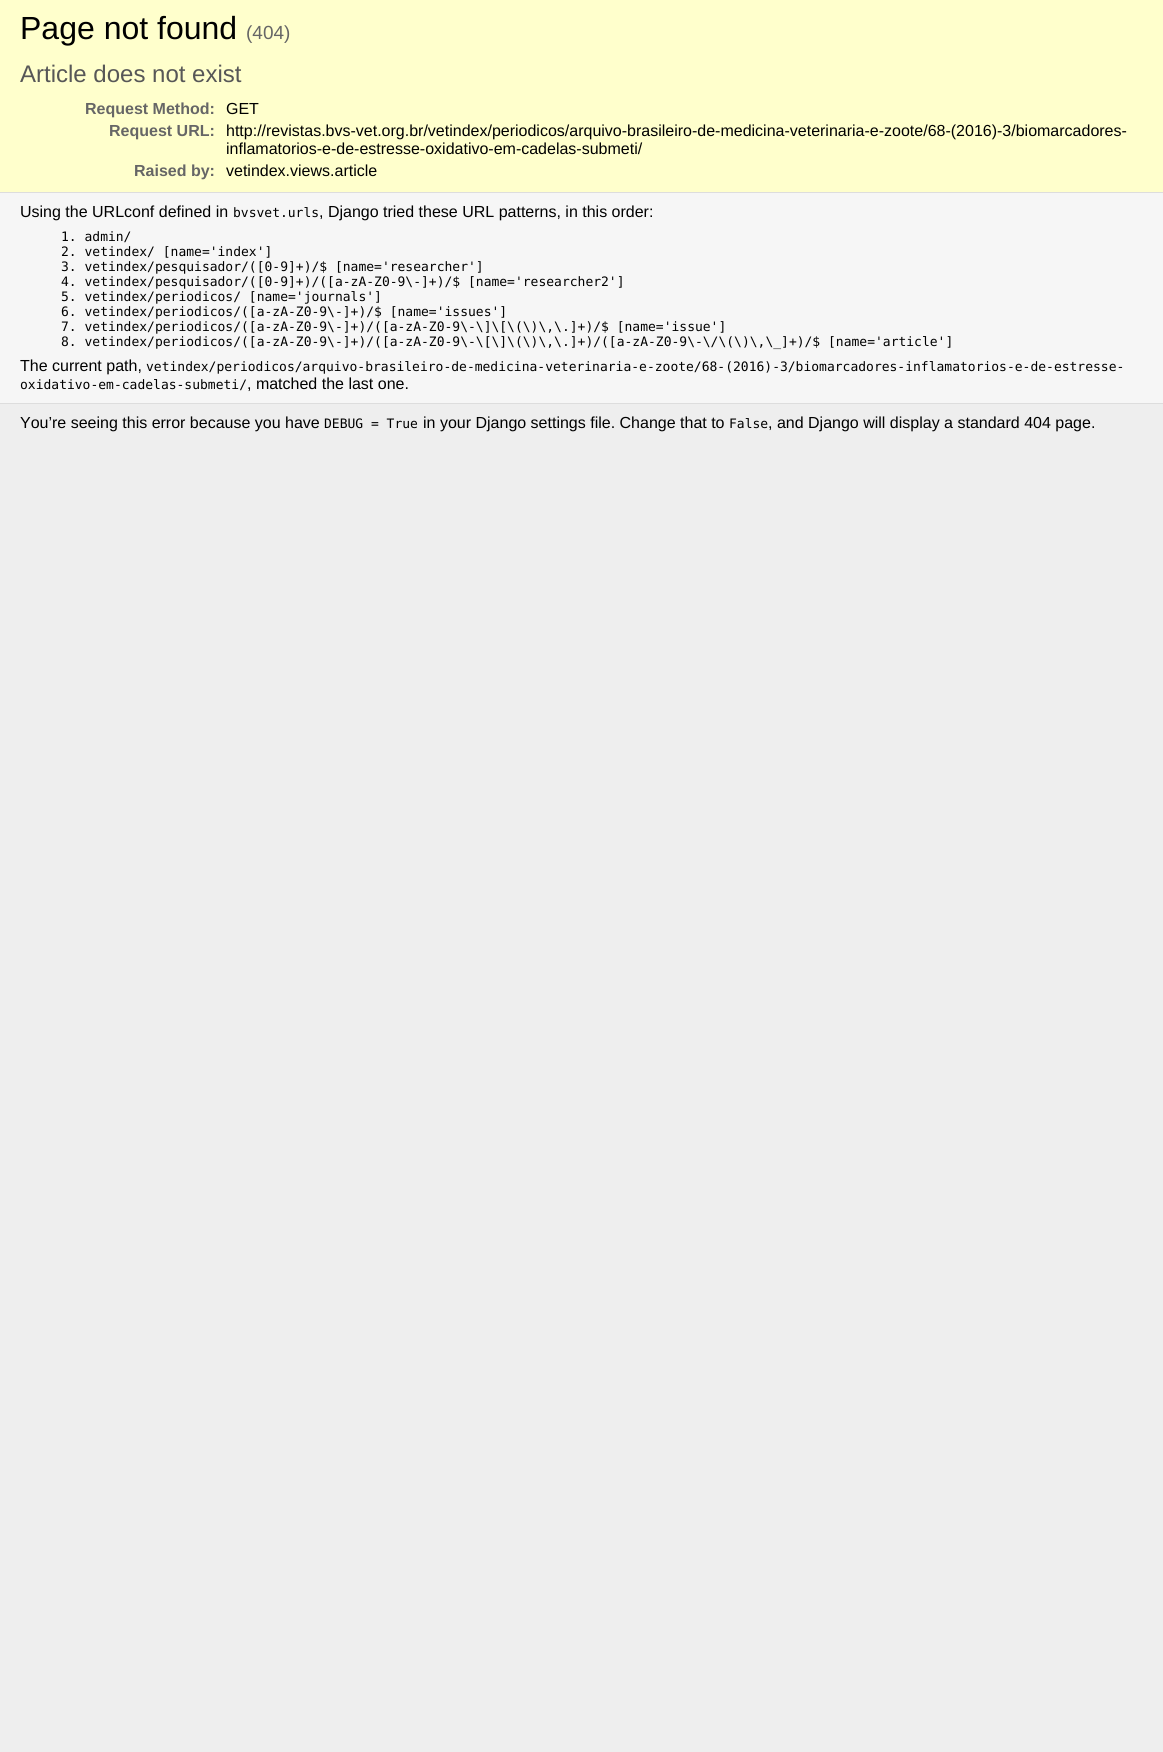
import math
import cairo

surface = cairo.ImageSurface(cairo.FORMAT_RGB24, 1163, 1752)
cr = cairo.Context(surface)
options = cairo.FontOptions()
options.set_hint_metrics(cairo.HINT_METRICS_OFF)
options.set_hint_style(cairo.HINT_STYLE_NONE)
cr.set_font_options(options)
cr.set_miter_limit(4)


def rgb(code):
    cr.set_source_rgb(*(v / 255 for v in bytes.fromhex(code[-6:])))


rgb("#eeeeee")
cr.paint()
for x, y, w, h, color in [
    (0, 0, 1163, 192, "#ffffcc"),
    (0, 192, 1163, 1, "#dddddd"),
    (0, 193, 1163, 210, "#f6f6f6"),
    (0, 403, 1163, 1, "#dddddd"),
]:
    rgb(color)
    cr.rectangle(x, y, w, h)
    cr.fill()
cr.select_font_face("Liberation Sans")
cr.set_font_size(32)
rgb("#000000")
cr.move_to(20, 39)
cr.show_text("Page not found")
cr.set_font_size(19)
rgb("#666666")
cr.move_to(246, 39)
cr.show_text("(404)")
cr.set_font_size(24)
rgb("#575757")
cr.move_to(20, 82)
cr.show_text("Article does not exist")
cr.select_font_face("Liberation Sans", cairo.FONT_SLANT_NORMAL, cairo.FONT_WEIGHT_BOLD)
cr.set_font_size(16)
rgb("#666666")
cr.move_to(85, 114)
cr.show_text("Request Method:")
cr.select_font_face("Liberation Sans")
rgb("#000000")
cr.move_to(226, 114)
cr.show_text("GET")
cr.select_font_face("Liberation Sans", cairo.FONT_SLANT_NORMAL, cairo.FONT_WEIGHT_BOLD)
rgb("#666666")
cr.move_to(109, 136)
cr.show_text("Request URL:")
cr.select_font_face("Liberation Sans")
rgb("#000000")
cr.move_to(226, 136)
cr.show_text("http://revistas.bvs-vet.org.br/vetindex/periodicos/arquivo-brasileiro-de-medicina-veterinaria-e-zoote/68-(2016)-3/biomarcadores-")
cr.move_to(226, 154)
cr.show_text("inflamatorios-e-de-estresse-oxidativo-em-cadelas-submeti/")
cr.select_font_face("Liberation Sans", cairo.FONT_SLANT_NORMAL, cairo.FONT_WEIGHT_BOLD)
rgb("#666666")
cr.move_to(134, 176)
cr.show_text("Raised by:")
cr.select_font_face("Liberation Sans")
rgb("#000000")
cr.move_to(226, 176)
cr.show_text("vetindex.views.article")
cr.move_to(20, 217)
cr.show_text("Using the URLconf defined in")
cr.select_font_face("DejaVu Sans Mono")
cr.set_font_size(13)
cr.move_to(233, 217)
cr.show_text("bvsvet.urls")
cr.select_font_face("Liberation Sans")
cr.set_font_size(16)
cr.move_to(319, 217)
cr.show_text(", Django tried these URL patterns, in this order:")
cr.select_font_face("DejaVu Sans Mono")
cr.set_font_size(13)
for x, y, s in [
    (61, 241, "1. admin/"),
    (61, 256, "2. vetindex/ [name='index']"),
    (61, 271, "3. vetindex/pesquisador/([0-9]+)/$ [name='researcher']"),
    (61, 286, "4. vetindex/pesquisador/([0-9]+)/([a-zA-Z0-9\\-]+)/$ [name='researcher2']"),
    (61, 301, "5. vetindex/periodicos/ [name='journals']"),
    (61, 316, "6. vetindex/periodicos/([a-zA-Z0-9\\-]+)/$ [name='issues']"),
    (61, 331, "7. vetindex/periodicos/([a-zA-Z0-9\\-]+)/([a-zA-Z0-9\\-\\]\\[\\(\\)\\,\\.]+)/$ [name='issue']"),
    (61, 346, "8. vetindex/periodicos/([a-zA-Z0-9\\-]+)/([a-zA-Z0-9\\-\\[\\]\\(\\)\\,\\.]+)/([a-zA-Z0-9\\-\\/\\(\\)\\,\\_]+)/$ [name='article']"),
]:
    cr.move_to(x, y)
    cr.show_text(s)
cr.select_font_face("Liberation Sans")
cr.set_font_size(16)
cr.move_to(20, 371)
cr.show_text("The current path,")
cr.select_font_face("DejaVu Sans Mono")
cr.set_font_size(13)
cr.move_to(146, 371)
cr.show_text("vetindex/periodicos/arquivo-brasileiro-de-medicina-veterinaria-e-zoote/68-(2016)-3/biomarcadores-inflamatorios-e-de-estresse-")
cr.move_to(20, 389)
cr.show_text("oxidativo-em-cadelas-submeti/")
cr.select_font_face("Liberation Sans")
cr.set_font_size(16)
cr.move_to(247, 389)
cr.show_text(", matched the last one.")
cr.move_to(20, 428)
cr.show_text("You’re seeing this error because you have")
cr.select_font_face("DejaVu Sans Mono")
cr.set_font_size(13)
cr.move_to(324, 428)
cr.show_text("DEBUG = True")
cr.select_font_face("Liberation Sans")
cr.set_font_size(16)
cr.move_to(423, 428)
cr.show_text("in your Django settings file. Change that to")
cr.select_font_face("DejaVu Sans Mono")
cr.set_font_size(13)
cr.move_to(729, 428)
cr.show_text("False")
cr.select_font_face("Liberation Sans")
cr.set_font_size(16)
cr.move_to(768, 428)
cr.show_text(", and Django will display a standard 404 page.")
surface.write_to_png("page.png")
